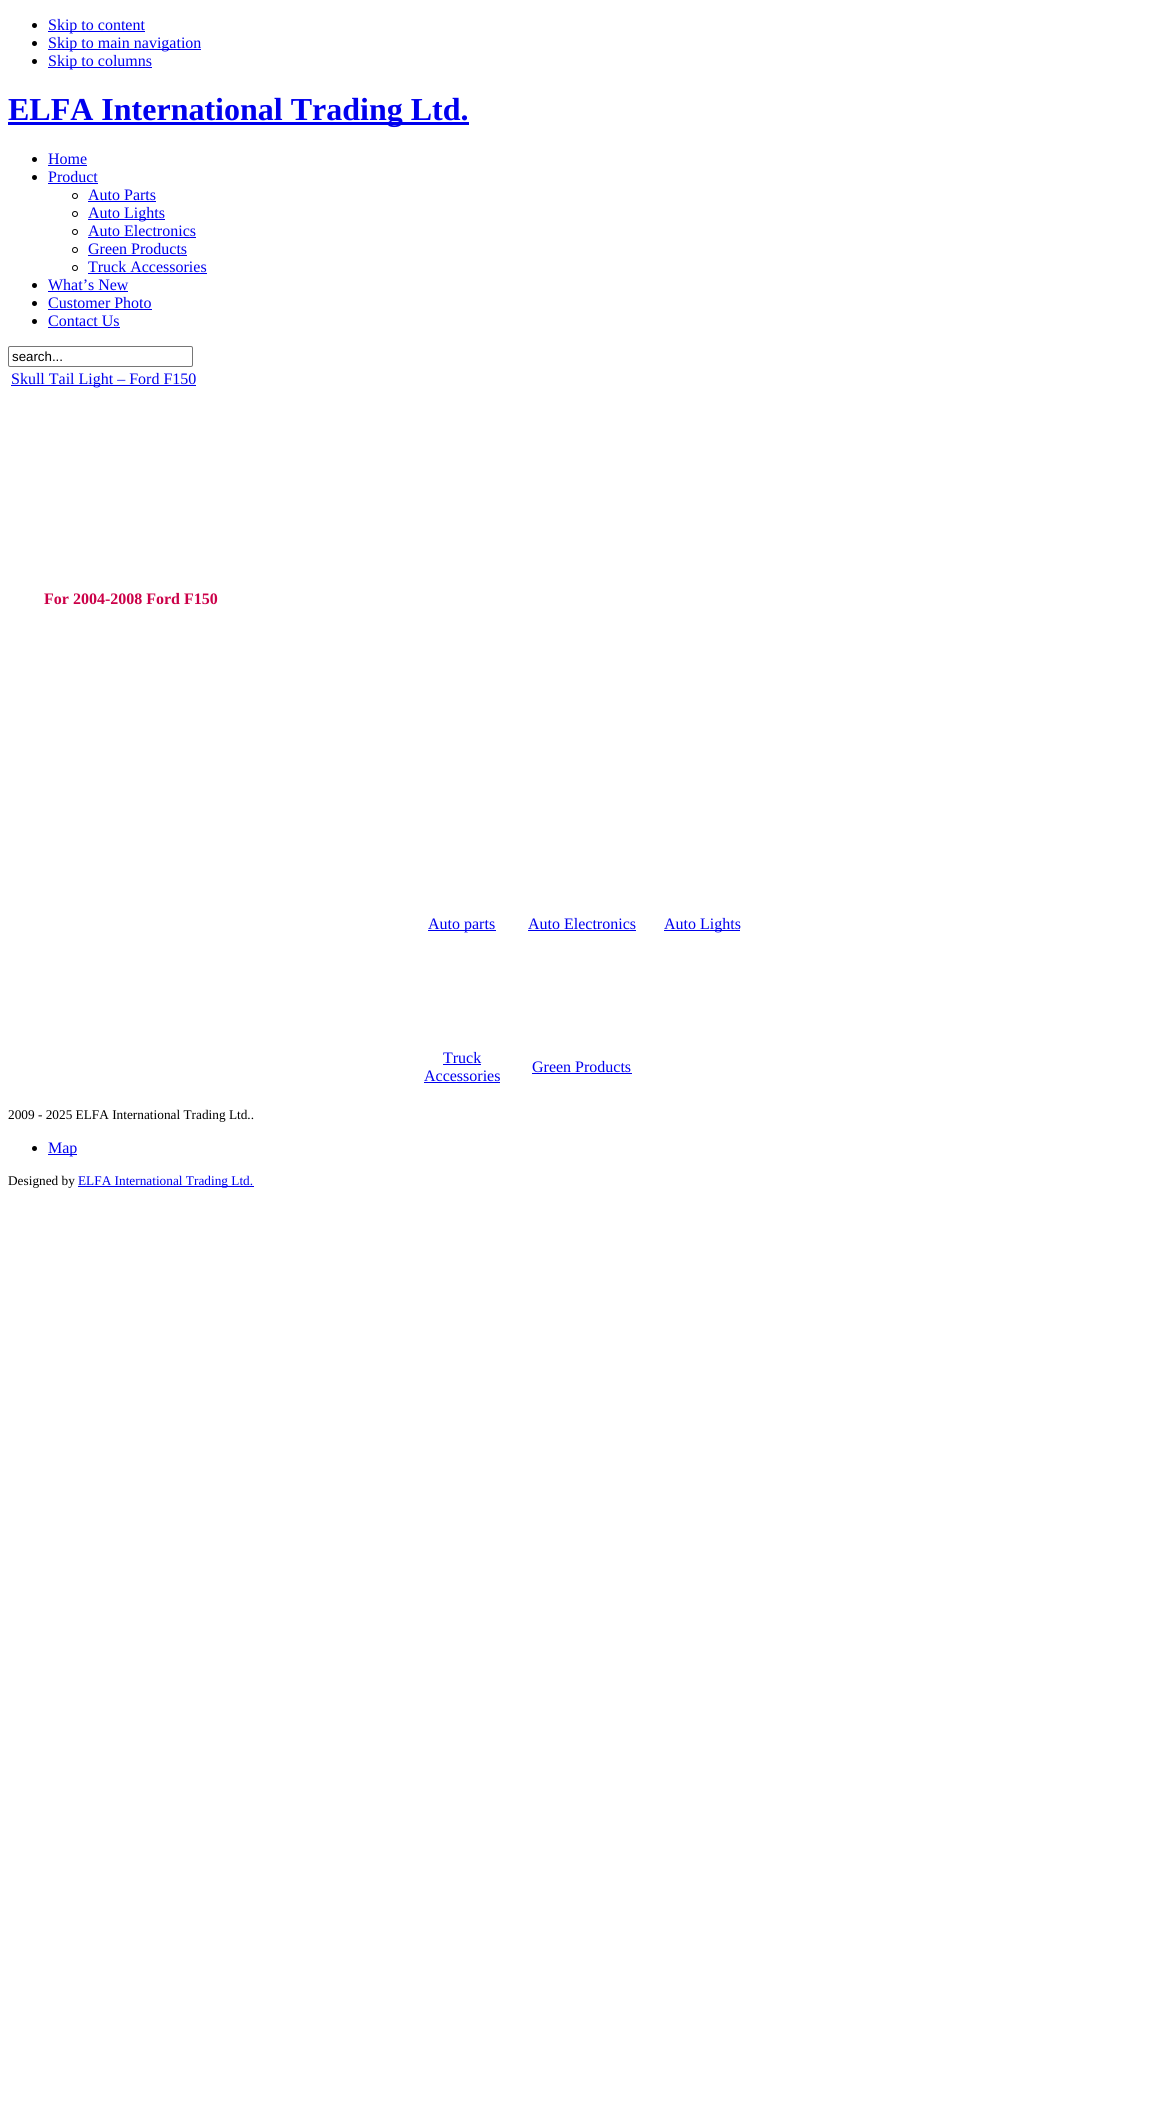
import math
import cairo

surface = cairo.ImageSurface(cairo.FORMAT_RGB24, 1164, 2125)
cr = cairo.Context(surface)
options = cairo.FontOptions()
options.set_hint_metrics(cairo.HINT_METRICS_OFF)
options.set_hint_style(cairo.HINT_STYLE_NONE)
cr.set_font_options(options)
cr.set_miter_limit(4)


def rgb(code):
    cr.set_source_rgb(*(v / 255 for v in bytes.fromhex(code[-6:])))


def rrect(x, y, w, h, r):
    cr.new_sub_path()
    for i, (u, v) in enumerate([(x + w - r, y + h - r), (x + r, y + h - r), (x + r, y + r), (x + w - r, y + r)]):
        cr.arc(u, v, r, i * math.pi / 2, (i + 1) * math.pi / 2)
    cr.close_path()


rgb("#ffffff")
cr.paint()
rgb("#000000")
cr.arc(34.5, 25.5, 2.5, 0, 2 * math.pi)
cr.fill()
rgb("#0000ee")
cr.rectangle(48, 31, 97, 1)
cr.fill()
rgb("#000000")
cr.arc(34.5, 43.5, 2.5, 0, 2 * math.pi)
cr.fill()
rgb("#0000ee")
cr.rectangle(48, 49, 153, 1)
cr.fill()
rgb("#000000")
cr.arc(34.5, 61.5, 2.5, 0, 2 * math.pi)
cr.fill()
rgb("#0000ee")
cr.rectangle(48, 67, 104, 1)
cr.fill()
cr.rectangle(8, 122, 461, 3)
cr.fill()
rgb("#000000")
cr.arc(34.5, 159.5, 2.5, 0, 2 * math.pi)
cr.fill()
rgb("#0000ee")
cr.rectangle(48, 165, 39, 1)
cr.fill()
rgb("#000000")
cr.arc(34.5, 177.5, 2.5, 0, 2 * math.pi)
cr.fill()
rgb("#0000ee")
cr.rectangle(48, 183, 50, 1)
cr.fill()
cr.arc(75, 196, 2.5, 0, 2 * math.pi)
rgb("#000000")
cr.set_line_width(1)
cr.stroke()
rgb("#0000ee")
cr.rectangle(88, 201, 68, 1)
cr.fill()
cr.arc(75, 214, 2.5, 0, 2 * math.pi)
rgb("#000000")
cr.stroke()
rgb("#0000ee")
cr.rectangle(88, 219, 77, 1)
cr.fill()
cr.arc(75, 232, 2.5, 0, 2 * math.pi)
rgb("#000000")
cr.stroke()
rgb("#0000ee")
cr.rectangle(88, 237, 108, 1)
cr.fill()
cr.arc(75, 250, 2.5, 0, 2 * math.pi)
rgb("#000000")
cr.stroke()
rgb("#0000ee")
cr.rectangle(88, 255, 99, 1)
cr.fill()
cr.arc(75, 268, 2.5, 0, 2 * math.pi)
rgb("#000000")
cr.stroke()
rgb("#0000ee")
cr.rectangle(88, 273, 119, 1)
cr.fill()
rgb("#000000")
cr.arc(34.5, 285.5, 2.5, 0, 2 * math.pi)
cr.fill()
rgb("#0000ee")
cr.rectangle(48, 291, 80, 1)
cr.fill()
rgb("#000000")
cr.arc(34.5, 303.5, 2.5, 0, 2 * math.pi)
cr.fill()
rgb("#0000ee")
cr.rectangle(48, 309, 104, 1)
cr.fill()
rgb("#000000")
cr.arc(34.5, 321.5, 2.5, 0, 2 * math.pi)
cr.fill()
rgb("#0000ee")
cr.rectangle(48, 327, 72, 1)
cr.fill()
rrect(8.5, 346.5, 184, 20, 1.5)
rgb("#767676")
cr.stroke()
for x, y, w, h, color in [
    (11, 385, 185, 1, "#0000ee"),
    (428, 930, 68, 1, "#0000ee"),
    (528, 930, 108, 1, "#0000ee"),
    (664, 930, 76, 1, "#0000ee"),
    (443, 1064, 38, 1, "#0000ee"),
    (424, 1082, 76, 1, "#0000ee"),
    (532, 1073, 100, 1, "#0000ee"),
]:
    rgb(color)
    cr.rectangle(x, y, w, h)
    cr.fill()
rgb("#000000")
cr.arc(34.5, 1148.5, 2.5, 0, 2 * math.pi)
cr.fill()
rgb("#0000ee")
cr.rectangle(48, 1154, 29, 1)
cr.fill()
cr.rectangle(78, 1186, 176, 1)
cr.fill()
cr.select_font_face("Liberation Serif")
cr.set_font_size(16)
for x, y, s in [
    (48, 30, "Skip to content"),
    (48, 48, "Skip to main navigation"),
    (48, 66, "Skip to columns"),
]:
    cr.move_to(x, y)
    cr.show_text(s)
cr.select_font_face("Liberation Serif", cairo.FONT_SLANT_NORMAL, cairo.FONT_WEIGHT_BOLD)
cr.set_font_size(32)
cr.move_to(8, 120)
cr.show_text("ELFA International Trading Ltd.")
cr.select_font_face("Liberation Serif")
cr.set_font_size(16)
for x, y, s in [
    (48, 164, "Home"),
    (48, 182, "Product"),
    (88, 200, "Auto Parts"),
    (88, 218, "Auto Lights"),
    (88, 236, "Auto Electronics"),
    (88, 254, "Green Products"),
    (88, 272, "Truck Accessories"),
    (48, 290, "What’s New"),
    (48, 308, "Customer Photo"),
    (48, 326, "Contact Us"),
]:
    cr.move_to(x, y)
    cr.show_text(s)
cr.select_font_face("Liberation Sans")
cr.set_font_size(13.3)
rgb("#000000")
cr.move_to(12, 361)
cr.show_text("search...")
cr.select_font_face("Liberation Serif")
cr.set_font_size(16)
rgb("#0000ee")
cr.move_to(11, 384)
cr.show_text("Skull Tail Light – Ford F150")
cr.select_font_face("Liberation Serif", cairo.FONT_SLANT_NORMAL, cairo.FONT_WEIGHT_BOLD)
rgb("#cb0048")
cr.move_to(44, 604)
cr.show_text("For 2004-2008 Ford F150")
cr.select_font_face("Liberation Serif")
rgb("#0000ee")
for x, y, s in [
    (428, 929, "Auto parts"),
    (528, 929, "Auto Electronics"),
    (664, 929, "Auto Lights"),
    (443, 1063, "Truck"),
    (424, 1081, "Accessories"),
    (532, 1072, "Green Products"),
]:
    cr.move_to(x, y)
    cr.show_text(s)
cr.set_font_size(13.3)
rgb("#000000")
cr.move_to(8, 1119)
cr.show_text("2009 - 2025 ELFA International Trading Ltd..")
cr.set_font_size(16)
rgb("#0000ee")
cr.move_to(48, 1153)
cr.show_text("Map")
cr.set_font_size(13.3)
rgb("#000000")
cr.move_to(8, 1185)
cr.show_text("Designed by")
rgb("#0000ee")
cr.move_to(78, 1185)
cr.show_text("ELFA International Trading Ltd.")
surface.write_to_png("page.png")
